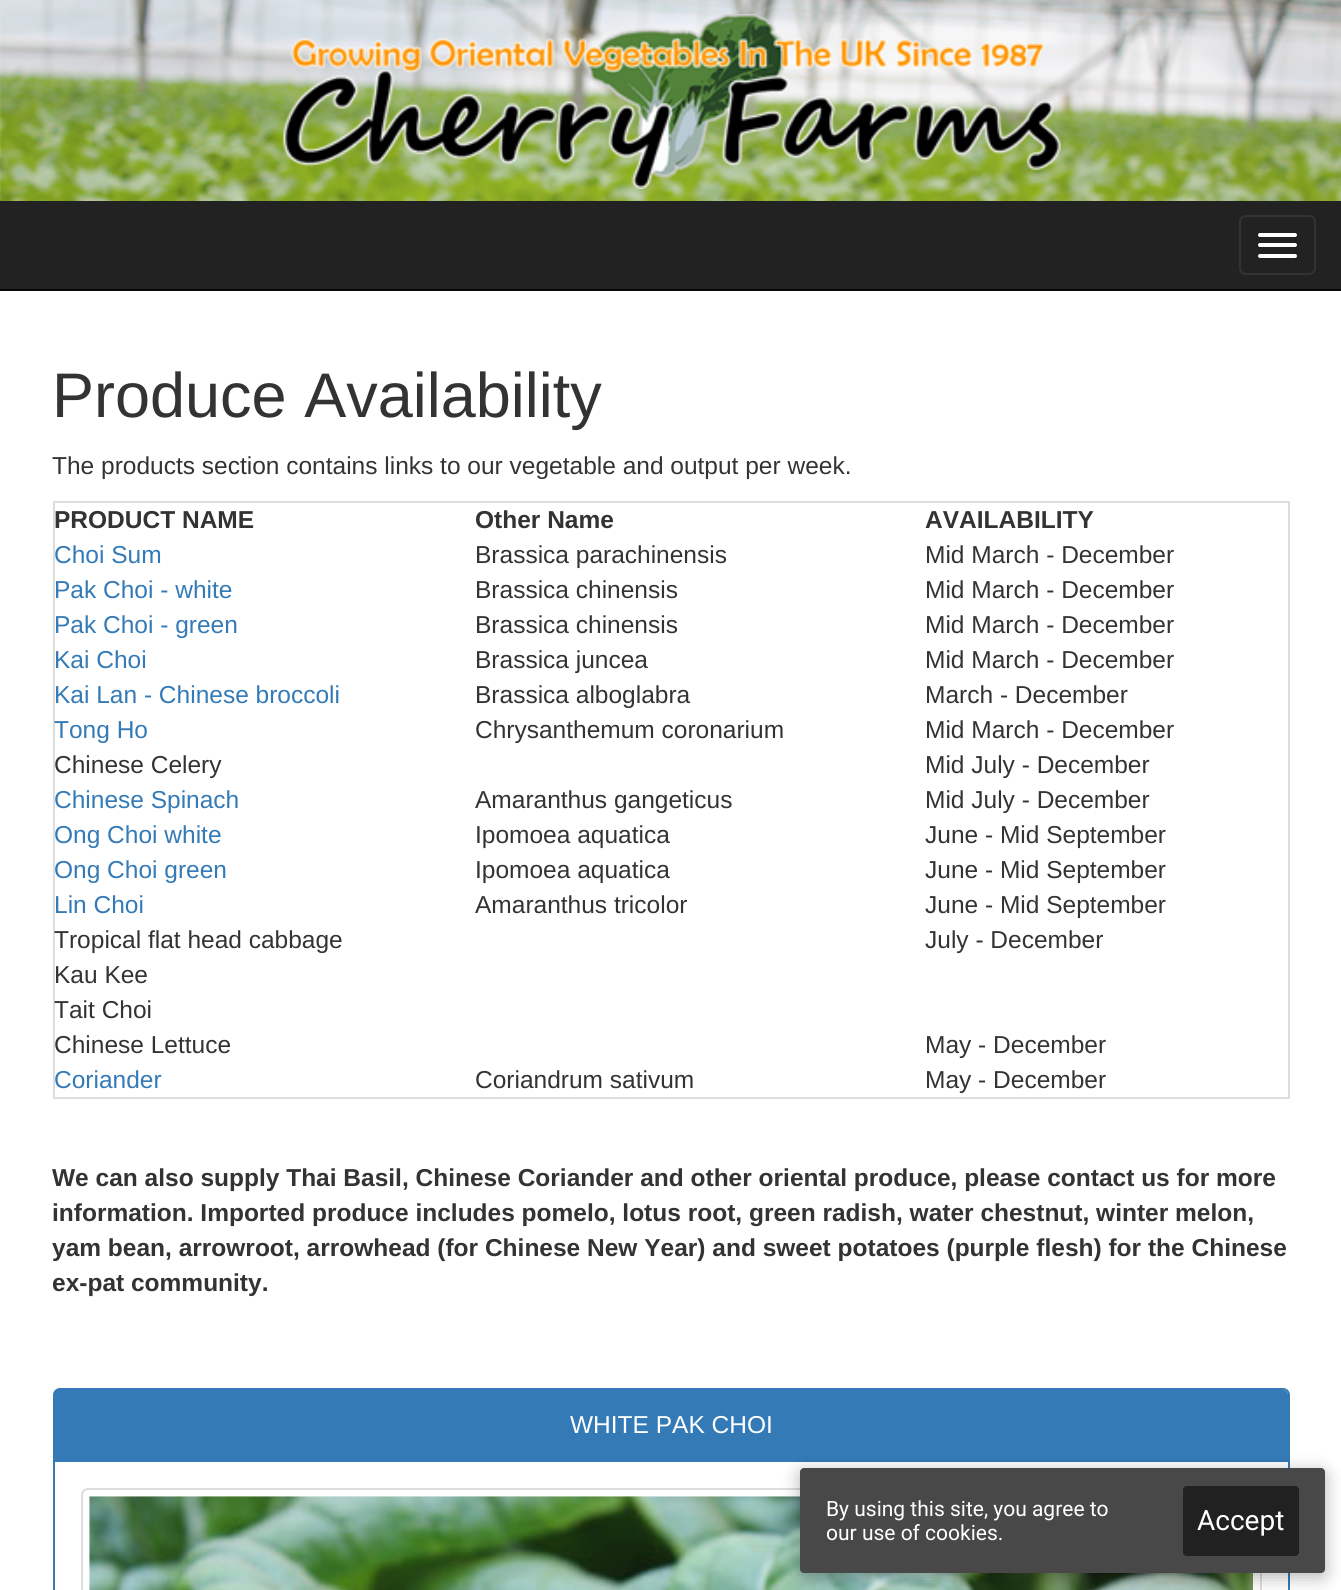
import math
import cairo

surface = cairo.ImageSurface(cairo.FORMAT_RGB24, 1341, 1590)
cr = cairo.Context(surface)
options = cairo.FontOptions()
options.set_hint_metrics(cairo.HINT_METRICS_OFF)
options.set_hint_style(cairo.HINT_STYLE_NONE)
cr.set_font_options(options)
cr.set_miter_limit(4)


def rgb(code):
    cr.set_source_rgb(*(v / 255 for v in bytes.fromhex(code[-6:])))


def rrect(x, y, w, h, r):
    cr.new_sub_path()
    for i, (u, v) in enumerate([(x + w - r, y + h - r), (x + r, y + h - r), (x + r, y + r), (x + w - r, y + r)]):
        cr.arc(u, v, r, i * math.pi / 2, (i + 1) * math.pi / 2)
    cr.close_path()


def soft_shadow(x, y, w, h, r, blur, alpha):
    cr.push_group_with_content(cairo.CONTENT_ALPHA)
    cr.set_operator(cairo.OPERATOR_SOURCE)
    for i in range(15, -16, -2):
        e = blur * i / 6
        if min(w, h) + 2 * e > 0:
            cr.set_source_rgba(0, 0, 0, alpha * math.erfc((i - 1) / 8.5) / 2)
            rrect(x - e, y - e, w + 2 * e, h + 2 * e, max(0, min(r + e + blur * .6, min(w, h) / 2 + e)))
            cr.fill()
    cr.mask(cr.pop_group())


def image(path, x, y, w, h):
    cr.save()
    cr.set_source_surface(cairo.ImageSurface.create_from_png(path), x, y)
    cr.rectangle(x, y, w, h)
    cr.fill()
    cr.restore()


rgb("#ffffff")
cr.paint()
image("img/1.png", 0, 0, 1341, 201)
image("img/2.png", 283, 14, 778, 175)
rgb("#222222")
cr.rectangle(0, 201, 1341, 88)
cr.fill()
rgb("#080808")
cr.rectangle(0, 289, 1341, 2)
cr.fill()
rrect(1240, 216, 75, 58, 6)
rgb("#333333")
cr.stroke()
rgb("#ffffff")
rrect(1258, 233, 39, 4, 2)
cr.fill()
rrect(1258, 243, 39, 4, 2)
cr.fill()
rrect(1258, 254, 39, 4, 2)
cr.fill()
cr.rectangle(54, 502, 1235, 596)
rgb("#dddddd")
cr.stroke()
rrect(54, 1389, 1235, 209, 6)
rgb("#337ab7")
cr.stroke()
cr.new_path()
cr.move_to(59, 1390)
cr.line_to(1283, 1390)
cr.curve_to(1286, 1390, 1288, 1392, 1288, 1395)
cr.line_to(1288, 1461)
cr.line_to(54, 1461)
cr.line_to(54, 1395)
cr.curve_to(54, 1392, 56, 1390, 59, 1390)
cr.close_path()
cr.fill()
cr.rectangle(54, 1461, 1234, 1)
cr.fill()
rrect(82, 1489, 1179, 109, 6)
rgb("#dddddd")
cr.stroke()
image("img/3.png", 89, 1496, 1164, 94)
rgb("#000000")
soft_shadow(800, 1472, 525, 105, 4, 9, 0.3)
rgb("#484848")
rrect(800, 1468, 525, 105, 4)
cr.fill()
rgb("#212121")
rrect(1183, 1486, 116, 70, 4)
cr.fill()
cr.select_font_face("Liberation Sans")
cr.set_font_size(63)
rgb("#333333")
cr.move_to(52, 417)
cr.show_text("Produce Availability")
cr.set_font_size(24.5)
cr.move_to(52, 474)
cr.show_text("The products section contains links to our vegetable and output per week.")
cr.select_font_face("Liberation Sans", cairo.FONT_SLANT_NORMAL, cairo.FONT_WEIGHT_BOLD)
for x, y, s in [
    (54, 528, "PRODUCT NAME"),
    (475, 528, "Other Name"),
    (925, 528, "AVAILABILITY"),
]:
    cr.move_to(x, y)
    cr.show_text(s)
cr.select_font_face("Liberation Sans")
rgb("#337ab7")
cr.move_to(54, 563)
cr.show_text("Choi Sum")
rgb("#333333")
cr.move_to(475, 563)
cr.show_text("Brassica parachinensis")
cr.move_to(925, 563)
cr.show_text("Mid March - December")
rgb("#337ab7")
cr.move_to(54, 598)
cr.show_text("Pak Choi - white")
rgb("#333333")
cr.move_to(475, 598)
cr.show_text("Brassica chinensis")
cr.move_to(925, 598)
cr.show_text("Mid March - December")
rgb("#337ab7")
cr.move_to(54, 633)
cr.show_text("Pak Choi - green")
rgb("#333333")
cr.move_to(475, 633)
cr.show_text("Brassica chinensis")
cr.move_to(925, 633)
cr.show_text("Mid March - December")
rgb("#337ab7")
cr.move_to(54, 668)
cr.show_text("Kai Choi")
rgb("#333333")
cr.move_to(475, 668)
cr.show_text("Brassica juncea")
cr.move_to(925, 668)
cr.show_text("Mid March - December")
rgb("#337ab7")
cr.move_to(54, 703)
cr.show_text("Kai Lan - Chinese broccoli")
rgb("#333333")
cr.move_to(475, 703)
cr.show_text("Brassica alboglabra")
cr.move_to(925, 703)
cr.show_text("March - December")
rgb("#337ab7")
cr.move_to(54, 738)
cr.show_text("Tong Ho")
rgb("#333333")
for x, y, s in [
    (475, 738, "Chrysanthemum coronarium"),
    (925, 738, "Mid March - December"),
    (54, 773, "Chinese Celery"),
    (925, 773, "Mid July - December"),
]:
    cr.move_to(x, y)
    cr.show_text(s)
rgb("#337ab7")
cr.move_to(54, 808)
cr.show_text("Chinese Spinach")
rgb("#333333")
cr.move_to(475, 808)
cr.show_text("Amaranthus gangeticus")
cr.move_to(925, 808)
cr.show_text("Mid July - December")
rgb("#337ab7")
cr.move_to(54, 843)
cr.show_text("Ong Choi white")
rgb("#333333")
cr.move_to(475, 843)
cr.show_text("Ipomoea aquatica")
cr.move_to(925, 843)
cr.show_text("June - Mid September")
rgb("#337ab7")
cr.move_to(54, 878)
cr.show_text("Ong Choi green")
rgb("#333333")
cr.move_to(475, 878)
cr.show_text("Ipomoea aquatica")
cr.move_to(925, 878)
cr.show_text("June - Mid September")
rgb("#337ab7")
cr.move_to(54, 913)
cr.show_text("Lin Choi")
rgb("#333333")
for x, y, s in [
    (475, 913, "Amaranthus tricolor"),
    (925, 913, "June - Mid September"),
    (54, 948, "Tropical flat head cabbage"),
    (925, 948, "July - December"),
    (54, 983, "Kau Kee"),
    (54, 1018, "Tait Choi"),
    (54, 1053, "Chinese Lettuce"),
    (925, 1053, "May - December"),
]:
    cr.move_to(x, y)
    cr.show_text(s)
rgb("#337ab7")
cr.move_to(54, 1088)
cr.show_text("Coriander")
rgb("#333333")
cr.move_to(475, 1088)
cr.show_text("Coriandrum sativum")
cr.move_to(925, 1088)
cr.show_text("May - December")
cr.select_font_face("Liberation Sans", cairo.FONT_SLANT_NORMAL, cairo.FONT_WEIGHT_BOLD)
for x, y, s in [
    (52, 1186, "We can also supply Thai Basil, Chinese Coriander and other oriental produce, please contact us for more"),
    (52, 1221, "information. Imported produce includes pomelo, lotus root, green radish, water chestnut, winter melon,"),
    (52, 1256, "yam bean, arrowroot, arrowhead (for Chinese New Year) and sweet potatoes (purple flesh) for the Chinese"),
    (52, 1291, "ex-pat community."),
]:
    cr.move_to(x, y)
    cr.show_text(s)
cr.select_font_face("Liberation Sans")
rgb("#ffffff")
cr.move_to(570, 1433)
cr.show_text("WHITE PAK CHOI")
cr.select_font_face("Roboto")
cr.set_font_size(21)
cr.move_to(826, 1516)
cr.show_text("By using this site, you agree to")
cr.move_to(826, 1540)
cr.show_text("our use of cookies.")
cr.set_font_size(28)
cr.move_to(1197, 1530)
cr.show_text("Accept")
surface.write_to_png("page.png")
